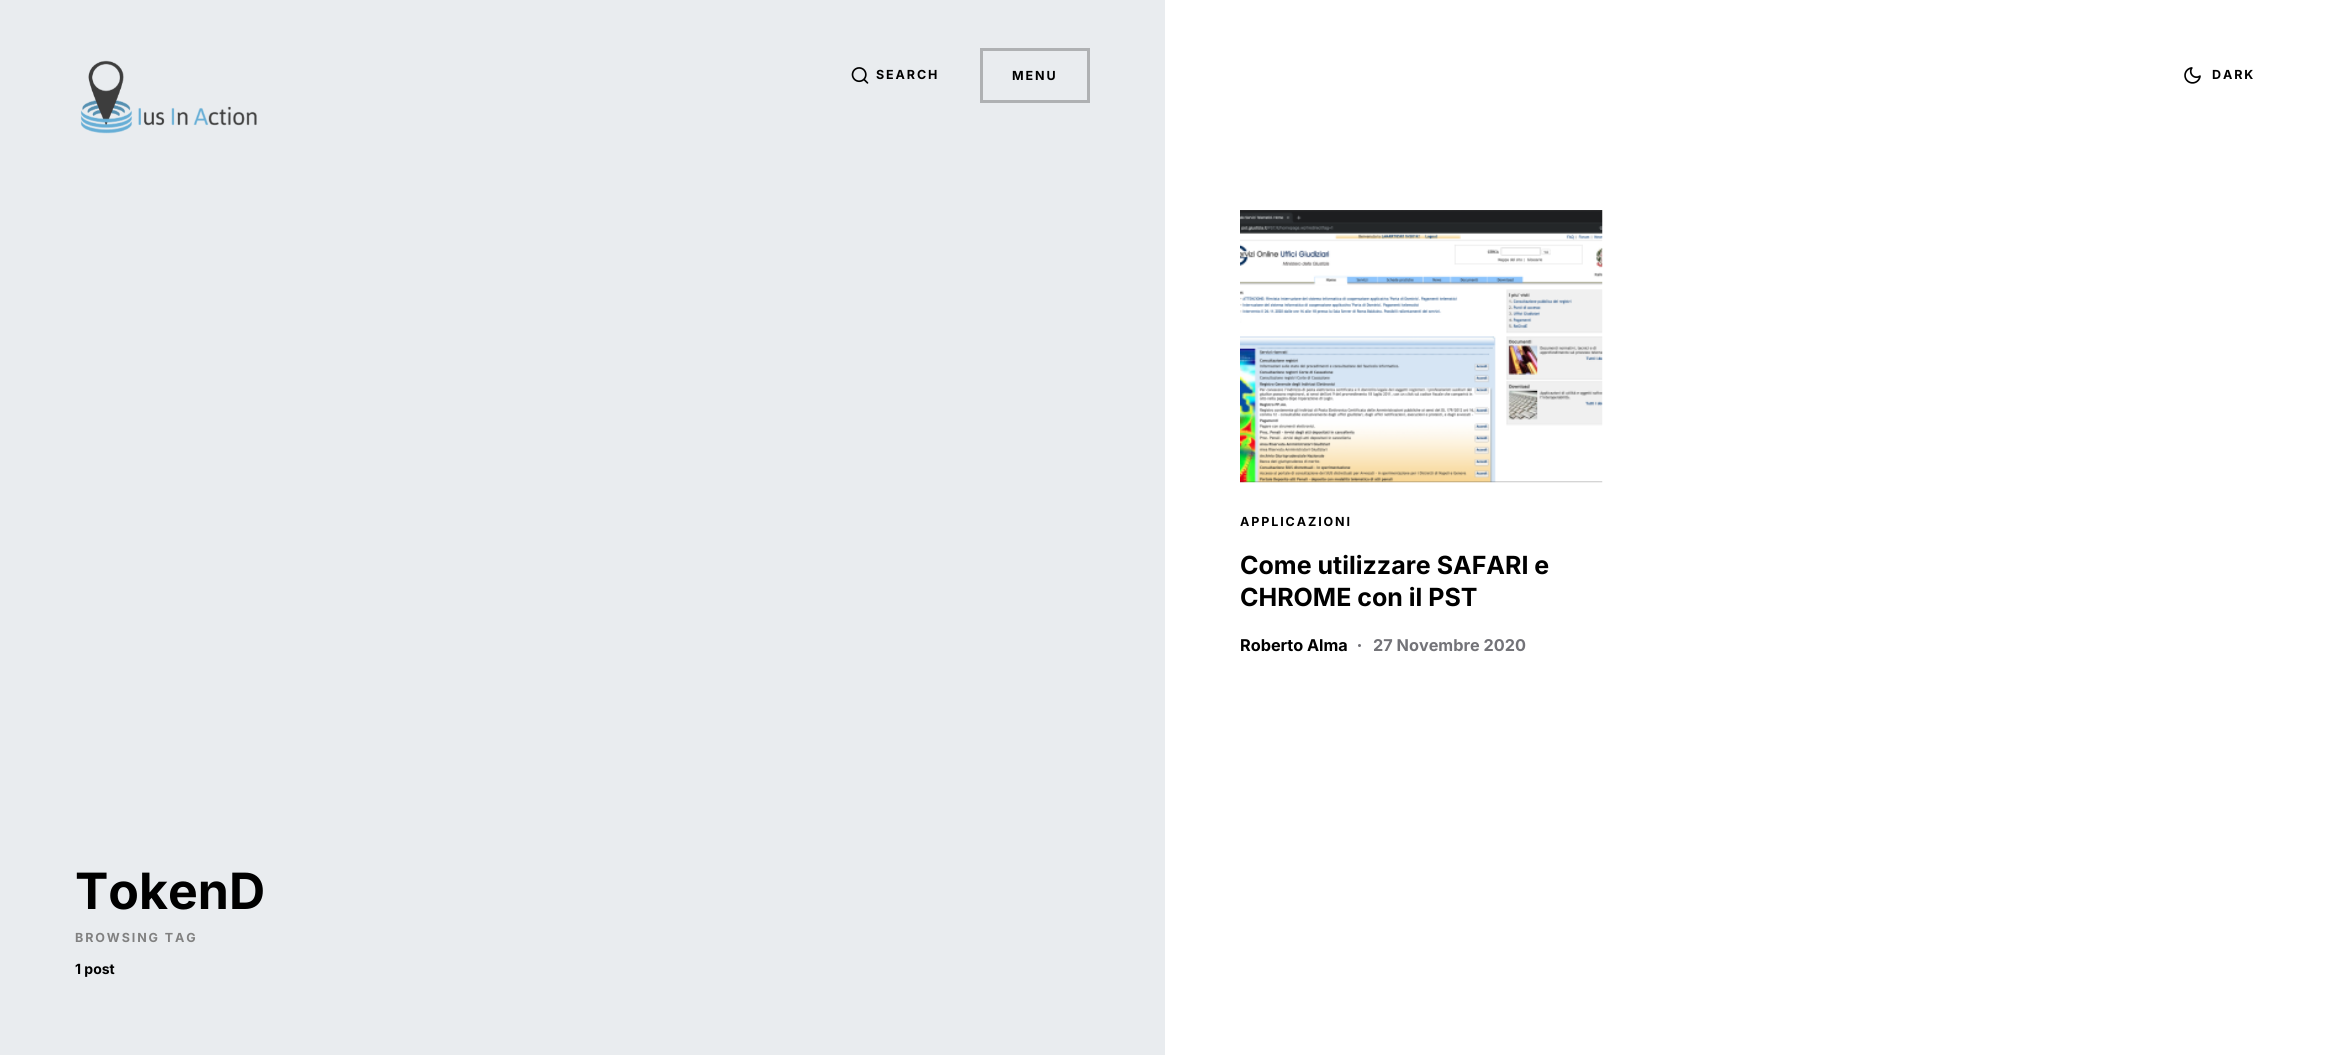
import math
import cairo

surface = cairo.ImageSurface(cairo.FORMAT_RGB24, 2330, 1055)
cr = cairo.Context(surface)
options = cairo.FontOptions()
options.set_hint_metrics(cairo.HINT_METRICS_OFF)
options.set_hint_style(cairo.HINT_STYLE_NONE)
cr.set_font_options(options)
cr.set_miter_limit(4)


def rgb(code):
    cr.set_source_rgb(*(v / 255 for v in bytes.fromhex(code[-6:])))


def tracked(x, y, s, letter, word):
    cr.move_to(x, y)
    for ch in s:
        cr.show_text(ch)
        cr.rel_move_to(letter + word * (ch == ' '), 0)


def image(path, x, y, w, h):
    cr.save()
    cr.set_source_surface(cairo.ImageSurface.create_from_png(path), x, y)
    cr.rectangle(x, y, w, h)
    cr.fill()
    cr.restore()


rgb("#ffffff")
cr.paint()
rgb("#e9ecef")
cr.rectangle(0, 0, 1165, 1055)
cr.fill()
image("img/1.png", 80, 60, 177, 74)
image("img/2.png", 851, 67, 18, 17)
cr.rectangle(981.5, 49.5, 107, 52)
rgb("#afb1b3")
cr.set_line_width(3)
cr.stroke()
image("img/3.png", 2184, 67, 17, 17)
image("img/4.png", 1240, 210, 363, 273)
rgb("#737378")
cr.arc(1359.5, 645.5, 1.5, 0, 2 * math.pi)
cr.fill()
cr.select_font_face("Inter", cairo.FONT_SLANT_NORMAL, cairo.FONT_WEIGHT_BOLD)
cr.set_font_size(12.5)
rgb("#000000")
tracked(876, 79, "SEARCH", 1.9, 0)
tracked(1012, 80, "MENU", 1.9, 0)
cr.set_font_size(50)
cr.move_to(75, 909)
cr.show_text("TokenD")
cr.set_font_size(12.5)
rgb("#818181")
tracked(75, 942, "BROWSING TAG", 1.9, 0)
cr.set_font_size(14)
rgb("#000000")
cr.move_to(75, 974)
cr.show_text("1 post")
cr.set_font_size(12.5)
tracked(2212, 79, "DARK", 1.9, 0)
tracked(1240, 526, "APPLICAZIONI", 1.9, 0)
cr.set_font_size(25)
cr.move_to(1240, 574)
cr.show_text("Come utilizzare SAFARI e")
cr.move_to(1240, 606)
cr.show_text("CHROME con il PST")
cr.set_font_size(16.25)
cr.move_to(1240, 651)
cr.show_text("Roberto Alma")
rgb("#737378")
cr.move_to(1373, 651)
cr.show_text("27 Novembre 2020")
surface.write_to_png("page.png")
